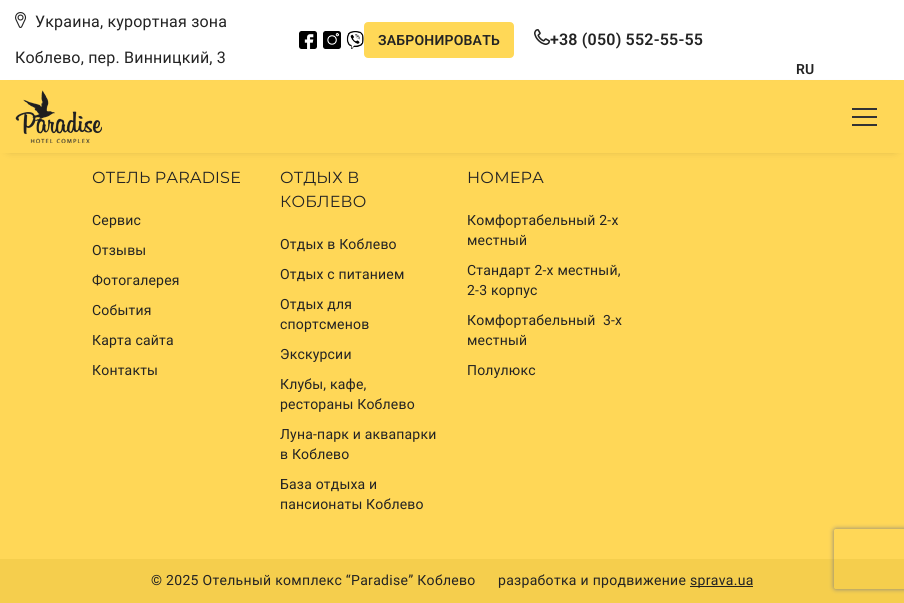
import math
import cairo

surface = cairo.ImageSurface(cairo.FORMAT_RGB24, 904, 603)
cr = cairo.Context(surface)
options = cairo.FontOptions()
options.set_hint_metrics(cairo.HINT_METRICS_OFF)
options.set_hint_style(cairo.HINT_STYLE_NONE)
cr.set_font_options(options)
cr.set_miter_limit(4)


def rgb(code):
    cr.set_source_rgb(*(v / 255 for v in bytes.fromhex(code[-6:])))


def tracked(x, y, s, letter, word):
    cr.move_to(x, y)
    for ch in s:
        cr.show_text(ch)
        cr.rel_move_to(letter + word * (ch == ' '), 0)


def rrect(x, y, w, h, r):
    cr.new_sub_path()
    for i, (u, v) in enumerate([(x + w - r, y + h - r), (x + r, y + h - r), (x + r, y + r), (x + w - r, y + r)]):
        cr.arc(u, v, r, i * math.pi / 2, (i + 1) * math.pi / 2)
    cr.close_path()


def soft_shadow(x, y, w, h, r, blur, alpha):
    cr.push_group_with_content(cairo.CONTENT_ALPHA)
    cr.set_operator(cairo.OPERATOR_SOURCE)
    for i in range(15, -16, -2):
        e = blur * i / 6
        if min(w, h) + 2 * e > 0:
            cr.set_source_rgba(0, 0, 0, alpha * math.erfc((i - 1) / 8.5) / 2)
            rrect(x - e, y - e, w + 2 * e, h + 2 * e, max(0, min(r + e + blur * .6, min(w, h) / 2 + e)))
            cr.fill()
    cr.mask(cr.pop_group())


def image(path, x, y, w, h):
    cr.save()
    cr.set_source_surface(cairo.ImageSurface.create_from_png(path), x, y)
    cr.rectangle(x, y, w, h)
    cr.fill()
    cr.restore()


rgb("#ffd757")
cr.paint()
rgb("#ffffff")
cr.rectangle(0, 0, 904, 80)
cr.fill()
image("img/1.png", 15, 12, 12, 16)
image("img/2.png", 299, 31, 18, 18)
image("img/3.png", 323, 31, 18, 18)
image("img/4.png", 346, 31, 18, 18)
rgb("#ffd857")
rrect(365, 23, 148, 34, 3)
cr.fill_preserve()
cr.stroke()
image("img/5.png", 534, 29, 16, 16)
rgb("#000000")
soft_shadow(10, 93, 884, 53, 0, 5.5, 0.58)
rgb("#ffd757")
cr.rectangle(0, 81, 904, 72)
cr.fill()
image("img/6.png", 15, 90, 87, 53)
for x, y, w, h, color in [
    (852, 116, 25, 2, "#333333"),
    (852, 108, 25, 2, "#333333"),
    (852, 124, 25, 2, "#333333"),
    (0, 559, 904, 44, "#f5ce4d"),
    (690, 586, 63, 1, "#232323"),
]:
    rgb(color)
    cr.rectangle(x, y, w, h)
    cr.fill()
cr.save()
cr.set_fill_rule(cairo.FILL_RULE_EVEN_ODD)
cr.new_path()
cr.move_to(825, 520)
cr.line_to(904, 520)
cr.line_to(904, 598)
cr.line_to(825, 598)
cr.close_path()
cr.move_to(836, 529)
cr.line_to(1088, 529)
cr.curve_to(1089, 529, 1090, 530, 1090, 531)
cr.line_to(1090, 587)
cr.curve_to(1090, 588, 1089, 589, 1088, 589)
cr.line_to(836, 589)
cr.curve_to(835, 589, 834, 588, 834, 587)
cr.line_to(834, 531)
cr.curve_to(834, 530, 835, 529, 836, 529)
cr.close_path()
cr.clip()
rgb("#808080")
soft_shadow(834, 529, 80, 60, 2, 2.5, 1)
cr.restore()
cr.select_font_face("Roboto")
cr.set_font_size(16)
tracked(35, 27, "Украина, курортная зона", 0.2, 0)
tracked(15, 63, "Коблево, пер. Винницкий, 3", 0.2, 0)
cr.select_font_face("Roboto SemiBold")
cr.set_font_size(14)
tracked(378, 45, "ЗАБРОНИРОВАТЬ", 0.2, 0)
cr.set_font_size(16)
tracked(550, 45, "+38 (050) 552-55-55", 0.2, 0)
cr.set_font_size(14)
tracked(796, 74, "RU", 0.2, 0)
cr.select_font_face("Montserrat")
cr.set_font_size(16)
tracked(92, 183, "ОТЕЛЬ PARADISE", 0.2, 0)
cr.select_font_face("Roboto")
cr.set_font_size(14)
for x, y, s in [
    (92, 225, "Сервис"),
    (92, 255, "Отзывы"),
    (92, 285, "Фотогалерея"),
    (92, 315, "События"),
    (92, 345, "Карта сайта"),
    (92, 375, "Контакты"),
]:
    tracked(x, y, s, 0.2, 0)
cr.select_font_face("Montserrat")
cr.set_font_size(16)
tracked(280, 183, "ОТДЫХ В", 0.2, 0)
tracked(280, 207, "КОБЛЕВО", 0.2, 0)
cr.select_font_face("Roboto")
cr.set_font_size(14)
for x, y, s in [
    (280, 249, "Отдых в Коблево"),
    (280, 279, "Отдых с питанием"),
    (280, 309, "Отдых для"),
    (280, 329, "спортсменов"),
    (280, 359, "Экскурсии"),
    (280, 389, "Клубы, кафе,"),
    (280, 409, "рестораны Коблево"),
    (280, 439, "Луна-парк и аквапарки"),
    (280, 459, "в Коблево"),
    (280, 489, "База отдыха и"),
    (280, 509, "пансионаты Коблево"),
]:
    tracked(x, y, s, 0.2, 0)
cr.select_font_face("Montserrat")
cr.set_font_size(16)
tracked(467, 183, "НОМЕРА", 0.2, 0)
cr.select_font_face("Roboto")
cr.set_font_size(14)
for x, y, s in [
    (467, 225, "Комфортабельный 2-х"),
    (467, 245, "местный"),
    (467, 275, "Стандарт 2-х местный,"),
    (467, 295, "2-3 корпус"),
    (467, 325, "Комфортабельный  3-х"),
    (467, 345, "местный"),
    (467, 375, "Полулюкс"),
]:
    tracked(x, y, s, 0.2, 0)
for x, y, s in [
    (151, 585, "© 2025 Отельный комплекс “Paradise” Коблево"),
    (498, 585, "разработка и продвижение"),
    (690, 585, "sprava.ua"),
]:
    tracked(x, y, s, 0.3, 0)
surface.write_to_png("page.png")
